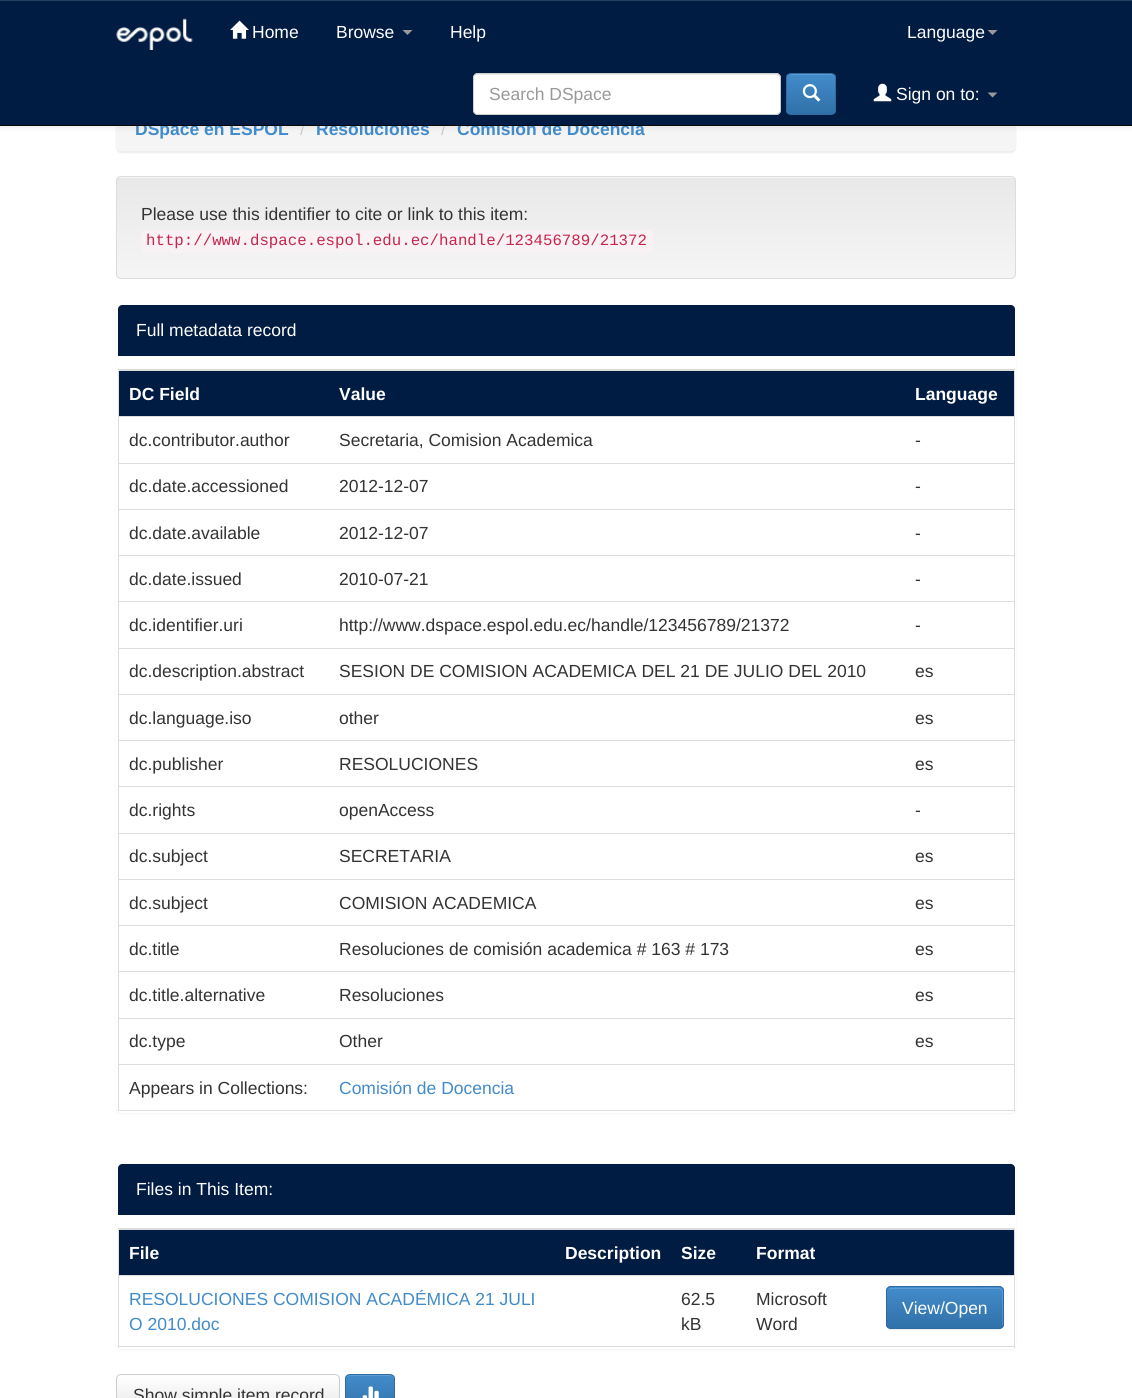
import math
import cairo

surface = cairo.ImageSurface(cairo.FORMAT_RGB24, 1132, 1398)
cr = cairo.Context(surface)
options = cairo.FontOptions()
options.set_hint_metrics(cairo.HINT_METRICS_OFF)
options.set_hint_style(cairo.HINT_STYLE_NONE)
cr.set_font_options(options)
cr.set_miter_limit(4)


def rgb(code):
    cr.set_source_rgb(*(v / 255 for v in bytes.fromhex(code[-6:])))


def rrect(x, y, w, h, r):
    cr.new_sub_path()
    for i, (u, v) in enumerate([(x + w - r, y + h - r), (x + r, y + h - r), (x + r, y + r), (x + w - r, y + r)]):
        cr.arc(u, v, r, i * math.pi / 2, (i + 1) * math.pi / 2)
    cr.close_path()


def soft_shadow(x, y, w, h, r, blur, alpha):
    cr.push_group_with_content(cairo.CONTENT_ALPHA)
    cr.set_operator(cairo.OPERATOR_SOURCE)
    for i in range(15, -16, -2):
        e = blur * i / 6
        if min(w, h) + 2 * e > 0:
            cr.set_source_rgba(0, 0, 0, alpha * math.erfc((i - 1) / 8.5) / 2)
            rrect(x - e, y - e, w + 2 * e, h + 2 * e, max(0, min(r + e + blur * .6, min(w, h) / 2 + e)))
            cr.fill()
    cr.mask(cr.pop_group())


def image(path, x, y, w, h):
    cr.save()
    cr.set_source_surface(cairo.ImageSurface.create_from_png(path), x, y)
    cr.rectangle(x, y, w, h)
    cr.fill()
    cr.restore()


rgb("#ffffff")
cr.paint()
rgb("#000000")
soft_shadow(116, 108, 900, 45, 5, 0.5, 0.07)
rgb("#f5f5f5")
rrect(116, 106, 900, 45, 5)
cr.fill()
rgb("#000000")
soft_shadow(0, 1, 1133, 127, 0, 3, 0.07)
rgb("#263e5f")
cr.rectangle(0, 0, 1132, 1)
cr.fill()
rgb("#f5f5f5")
rrect(116, 176, 900, 103, 5)
cr.fill()
cr.save()
rrect(116, 176, 900, 103, 5)
cr.clip()
gradient = cairo.LinearGradient(566, 177, 566, 278)
gradient.add_color_stop_rgba(0, 0.91, 0.91, 0.91, 1)
gradient.add_color_stop_rgba(1, 0.961, 0.961, 0.961, 1)
cr.set_source(gradient)
cr.rectangle(116, 178, 900, 100)
cr.fill()
cr.restore()
rrect(116.5, 176.5, 899, 102, 4.5)
rgb("#dcdcdc")
cr.set_line_width(1)
cr.stroke()
rgb("#f9f2f4")
rrect(141, 230, 512, 23, 5)
cr.fill()
rgb("#000000")
soft_shadow(116, 305, 900, 809, 5, 1, 0.05)
rgb("#ffffff")
rrect(116, 304, 900, 809, 5)
cr.fill()
rgb("#001c43")
cr.new_path()
cr.move_to(122, 305)
cr.line_to(1011, 305)
cr.curve_to(1013, 305, 1015, 307, 1015, 309)
cr.line_to(1015, 356)
cr.line_to(118, 356)
cr.line_to(118, 309)
cr.curve_to(118, 307, 120, 305, 122, 305)
cr.close_path()
cr.fill()
for x, y, w, h, color in [
    (118, 369, 897, 1, "#dcdcdc"),
    (1014, 369, 1, 742, "#dcdcdc"),
    (118, 1110, 897, 1, "#dcdcdc"),
    (118, 369, 1, 742, "#dcdcdc"),
    (119, 371, 895, 45, "#001c43"),
    (118, 370, 897, 1, "#dddddd"),
    (118, 416, 897, 1, "#dddddd"),
    (118, 463, 897, 1, "#dddddd"),
    (118, 509, 897, 1, "#dddddd"),
    (118, 555, 897, 1, "#dddddd"),
    (118, 601, 897, 1, "#dddddd"),
    (118, 648, 897, 1, "#dddddd"),
    (118, 694, 897, 1, "#dddddd"),
    (118, 740, 897, 1, "#dddddd"),
    (118, 786, 897, 1, "#dddddd"),
    (118, 833, 897, 1, "#dddddd"),
    (118, 879, 897, 1, "#dddddd"),
    (118, 925, 897, 1, "#dddddd"),
    (118, 971, 897, 1, "#dddddd"),
    (118, 1018, 897, 1, "#dddddd"),
    (118, 1064, 897, 1, "#dddddd"),
]:
    rgb(color)
    cr.rectangle(x, y, w, h)
    cr.fill()
rgb("#000000")
soft_shadow(116, 1164, 900, 186, 5, 1, 0.05)
rgb("#ffffff")
rrect(116, 1163, 900, 186, 5)
cr.fill()
rgb("#001c43")
cr.new_path()
cr.move_to(122, 1164)
cr.line_to(1011, 1164)
cr.curve_to(1013, 1164, 1015, 1166, 1015, 1168)
cr.line_to(1015, 1215)
cr.line_to(118, 1215)
cr.line_to(118, 1168)
cr.curve_to(118, 1166, 120, 1164, 122, 1164)
cr.close_path()
cr.fill()
for x, y, w, h, color in [
    (118, 1228, 897, 1, "#dcdcdc"),
    (1014, 1228, 1, 120, "#dcdcdc"),
    (118, 1346, 897, 1, "#dcdcdc"),
    (118, 1228, 1, 120, "#dcdcdc"),
    (119, 1230, 895, 45, "#001c43"),
    (118, 1229, 897, 1, "#dddddd"),
    (118, 1275, 897, 1, "#dddddd"),
]:
    rgb(color)
    cr.rectangle(x, y, w, h)
    cr.fill()
rgb("#000000")
soft_shadow(886, 1288, 118, 42, 5, 0.5, 0.07)
rgb("#428bca")
rrect(886, 1286, 118, 43, 5)
cr.fill()
cr.save()
rrect(886, 1286, 118, 43, 5)
cr.clip()
gradient = cairo.LinearGradient(945, 1288, 945, 1328)
gradient.add_color_stop_rgba(0, 0.259, 0.545, 0.792, 1)
gradient.add_color_stop_rgba(1, 0.188, 0.443, 0.663, 1)
cr.set_source(gradient)
cr.rectangle(886, 1288, 118, 40)
cr.fill()
cr.restore()
cr.set_source_rgba(1, 1, 1, 0.15)
cr.new_path()
cr.move_to(891, 1289)
cr.line_to(999, 1289)
cr.curve_to(1003, 1289, 1002, 1295, 1002, 1298)
cr.line_to(1002, 1327)
cr.curve_to(1004, 1325, 1003, 1321, 1003, 1319)
cr.line_to(1003, 1308)
cr.curve_to(1003, 1284, 1007, 1288, 981, 1288)
cr.line_to(890, 1288)
cr.line_to(889, 1290)
cr.close_path()
cr.fill()
rrect(886.5, 1286.5, 117, 42, 4.5)
rgb("#2d6ca2")
cr.stroke()
cr.save()
rrect(116, 1374, 224, 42, 5)
cr.clip()
gradient = cairo.LinearGradient(228, 1375, 228, 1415)
gradient.add_color_stop_rgba(0, 1, 1, 1, 1)
gradient.add_color_stop_rgba(1, 0.902, 0.902, 0.902, 1)
cr.set_source(gradient)
cr.rectangle(116, 1375, 224, 23)
cr.fill()
cr.restore()
rrect(116.5, 1374.5, 223, 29, 4.5)
rgb("#cccccc")
cr.stroke()
cr.save()
rrect(345, 1374, 50, 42, 5)
cr.clip()
gradient = cairo.LinearGradient(370, 1375, 370, 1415)
gradient.add_color_stop_rgba(0, 0.259, 0.545, 0.792, 1)
gradient.add_color_stop_rgba(1, 0.188, 0.443, 0.663, 1)
cr.set_source(gradient)
cr.rectangle(345, 1375, 50, 23)
cr.fill()
cr.restore()
rgb("#5e9cd2")
cr.new_path()
cr.move_to(350, 1376)
cr.line_to(390, 1376)
cr.curve_to(392, 1376, 394, 1378, 394, 1380)
cr.curve_to(394, 1374, 388, 1375, 383, 1375)
cr.line_to(357, 1375)
cr.curve_to(352, 1375, 346, 1374, 346, 1380)
cr.curve_to(346, 1378, 348, 1376, 350, 1376)
cr.close_path()
cr.fill()
rrect(345.5, 1374.5, 49, 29, 4.5)
rgb("#2d6ca2")
cr.stroke()
image("img/5.png", 362, 1386, 17, 12)
cr.select_font_face("Liberation Sans", cairo.FONT_SLANT_NORMAL, cairo.FONT_WEIGHT_BOLD)
cr.set_font_size(17.5)
rgb("#428bca")
cr.move_to(135, 135)
cr.show_text("DSpace en ESPOL")
cr.select_font_face("Liberation Sans")
rgb("#cccccc")
cr.move_to(300, 135)
cr.show_text("/")
cr.select_font_face("Liberation Sans", cairo.FONT_SLANT_NORMAL, cairo.FONT_WEIGHT_BOLD)
rgb("#428bca")
cr.move_to(316, 135)
cr.show_text("Resoluciones")
cr.select_font_face("Liberation Sans")
rgb("#cccccc")
cr.move_to(441, 135)
cr.show_text("/")
cr.select_font_face("Liberation Sans", cairo.FONT_SLANT_NORMAL, cairo.FONT_WEIGHT_BOLD)
rgb("#428bca")
cr.move_to(457, 135)
cr.show_text("Comisión de Docencia")
rgb("#001c43")
cr.rectangle(0, 1, 1132, 124)
cr.fill()
cr.save()
rrect(786, 73, 50, 42, 5)
cr.clip()
gradient = cairo.LinearGradient(811, 74, 811, 114)
gradient.add_color_stop_rgba(0, 0.259, 0.545, 0.792, 1)
gradient.add_color_stop_rgba(1, 0.188, 0.443, 0.663, 1)
cr.set_source(gradient)
cr.rectangle(786, 74, 50, 40)
cr.fill()
cr.restore()
rgb("#5e9cd2")
cr.new_path()
cr.move_to(791, 75)
cr.line_to(831, 75)
cr.curve_to(833, 75, 835, 77, 835, 79)
cr.curve_to(835, 73, 829, 74, 824, 74)
cr.line_to(798, 74)
cr.curve_to(794, 74, 788, 73, 788, 79)
cr.curve_to(788, 77, 789, 75, 791, 75)
cr.close_path()
cr.fill()
rrect(786.5, 73.5, 49, 41, 4.5)
rgb("#2d6ca2")
cr.stroke()
image("img/3.png", 802, 84, 19, 18)
image("img/4.png", 873, 83, 19, 19)
rgb("#999999")
cr.new_path()
cr.move_to(987.5, 92.5)
cr.line_to(997.5, 92.5)
cr.line_to(992.5, 97.5)
cr.close_path()
cr.fill()
cr.select_font_face("Liberation Sans")
rgb("#ffffff")
cr.move_to(896, 100)
cr.show_text("Sign on to:")
rgb("#999999")
cr.new_path()
cr.move_to(987.5, 30)
cr.line_to(997.5, 30)
cr.line_to(992.5, 35)
cr.close_path()
cr.fill()
rgb("#ffffff")
cr.move_to(907, 38)
cr.show_text("Language")
cr.move_to(450, 38)
cr.show_text("Help")
rgb("#999999")
cr.new_path()
cr.move_to(402.5, 30)
cr.line_to(412.5, 30)
cr.line_to(407.5, 35)
cr.close_path()
cr.fill()
rgb("#ffffff")
cr.move_to(336, 38)
cr.show_text("Browse")
image("img/2.png", 230, 20, 19, 19)
cr.move_to(252, 38)
cr.show_text("Home")
rrect(473, 73, 308, 42, 5)
cr.fill()
rgb("#ececec")
cr.new_path()
cr.move_to(478, 75)
cr.line_to(776, 75)
cr.curve_to(778, 75, 780, 77, 780, 79)
cr.curve_to(780, 76, 779, 74, 776, 74)
cr.line_to(478, 74)
cr.line_to(475, 75)
cr.curve_to(474, 76, 474, 78, 474, 79)
cr.curve_to(474, 77, 475, 75, 478, 75)
cr.close_path()
cr.fill()
rrect(473.5, 73.5, 307, 41, 4.5)
rgb("#cccccc")
cr.stroke()
rgb("#999999")
cr.move_to(489, 100)
cr.show_text("Search DSpace")
image("img/1.png", 116, 18, 77, 32)
rgb("#080808")
cr.rectangle(0, 125, 1132, 1)
cr.fill()
rgb("#333333")
cr.move_to(141, 220)
cr.show_text("Please use this identifier to cite or link to this item:")
cr.select_font_face("Liberation Mono")
cr.set_font_size(15.75)
rgb("#c7254e")
cr.move_to(146, 245)
cr.show_text("http://www.dspace.espol.edu.ec/handle/123456789/21372")
cr.select_font_face("Liberation Sans")
cr.set_font_size(17.5)
rgb("#ffffff")
cr.move_to(136, 336)
cr.show_text("Full metadata record")
cr.select_font_face("Liberation Sans", cairo.FONT_SLANT_NORMAL, cairo.FONT_WEIGHT_BOLD)
for x, y, s in [
    (129, 400, "DC Field"),
    (339, 400, "Value"),
    (915, 400, "Language"),
]:
    cr.move_to(x, y)
    cr.show_text(s)
cr.select_font_face("Liberation Sans")
rgb("#333333")
for x, y, s in [
    (129, 446, "dc.contributor.author"),
    (339, 446, "Secretaria, Comision Academica"),
    (915, 446, "-"),
    (129, 492, "dc.date.accessioned"),
    (339, 492, "2012-12-07"),
    (915, 492, "-"),
    (129, 539, "dc.date.available"),
    (339, 539, "2012-12-07"),
    (915, 539, "-"),
    (129, 585, "dc.date.issued"),
    (339, 585, "2010-07-21"),
    (915, 585, "-"),
    (129, 631, "dc.identifier.uri"),
    (339, 631, "http://www.dspace.espol.edu.ec/handle/123456789/21372"),
    (915, 631, "-"),
    (129, 677, "dc.description.abstract"),
    (339, 677, "SESION DE COMISION ACADEMICA DEL 21 DE JULIO DEL 2010"),
    (915, 677, "es"),
    (129, 724, "dc.language.iso"),
    (339, 724, "other"),
    (915, 724, "es"),
    (129, 770, "dc.publisher"),
    (339, 770, "RESOLUCIONES"),
    (915, 770, "es"),
    (129, 816, "dc.rights"),
    (339, 816, "openAccess"),
    (915, 816, "-"),
    (129, 862, "dc.subject"),
    (339, 862, "SECRETARIA"),
    (915, 862, "es"),
    (129, 909, "dc.subject"),
    (339, 909, "COMISION ACADEMICA"),
    (915, 909, "es"),
    (129, 955, "dc.title"),
    (339, 955, "Resoluciones de comisión academica # 163 # 173"),
    (915, 955, "es"),
    (129, 1001, "dc.title.alternative"),
    (339, 1001, "Resoluciones"),
    (915, 1001, "es"),
    (129, 1047, "dc.type"),
    (339, 1047, "Other"),
    (915, 1047, "es"),
    (129, 1094, "Appears in Collections:"),
]:
    cr.move_to(x, y)
    cr.show_text(s)
rgb("#428bca")
cr.move_to(339, 1094)
cr.show_text("Comisión de Docencia")
rgb("#ffffff")
cr.move_to(136, 1195)
cr.show_text("Files in This Item:")
cr.select_font_face("Liberation Sans", cairo.FONT_SLANT_NORMAL, cairo.FONT_WEIGHT_BOLD)
for x, y, s in [
    (129, 1259, "File"),
    (565, 1259, "Description"),
    (681, 1259, "Size"),
    (756, 1259, "Format"),
]:
    cr.move_to(x, y)
    cr.show_text(s)
cr.select_font_face("Liberation Sans")
rgb("#428bca")
cr.move_to(129, 1305)
cr.show_text("RESOLUCIONES COMISION ACADÉMICA 21 JULI")
cr.move_to(129, 1330)
cr.show_text("O 2010.doc")
rgb("#333333")
for x, y, s in [
    (681, 1305, "62.5"),
    (681, 1330, "kB"),
    (756, 1305, "Microsoft"),
    (756, 1330, "Word"),
]:
    cr.move_to(x, y)
    cr.show_text(s)
rgb("#ffffff")
cr.move_to(902, 1314)
cr.show_text("View/Open")
rgb("#333333")
cr.move_to(133, 1401)
cr.show_text("Show simple item record")
surface.write_to_png("page.png")
